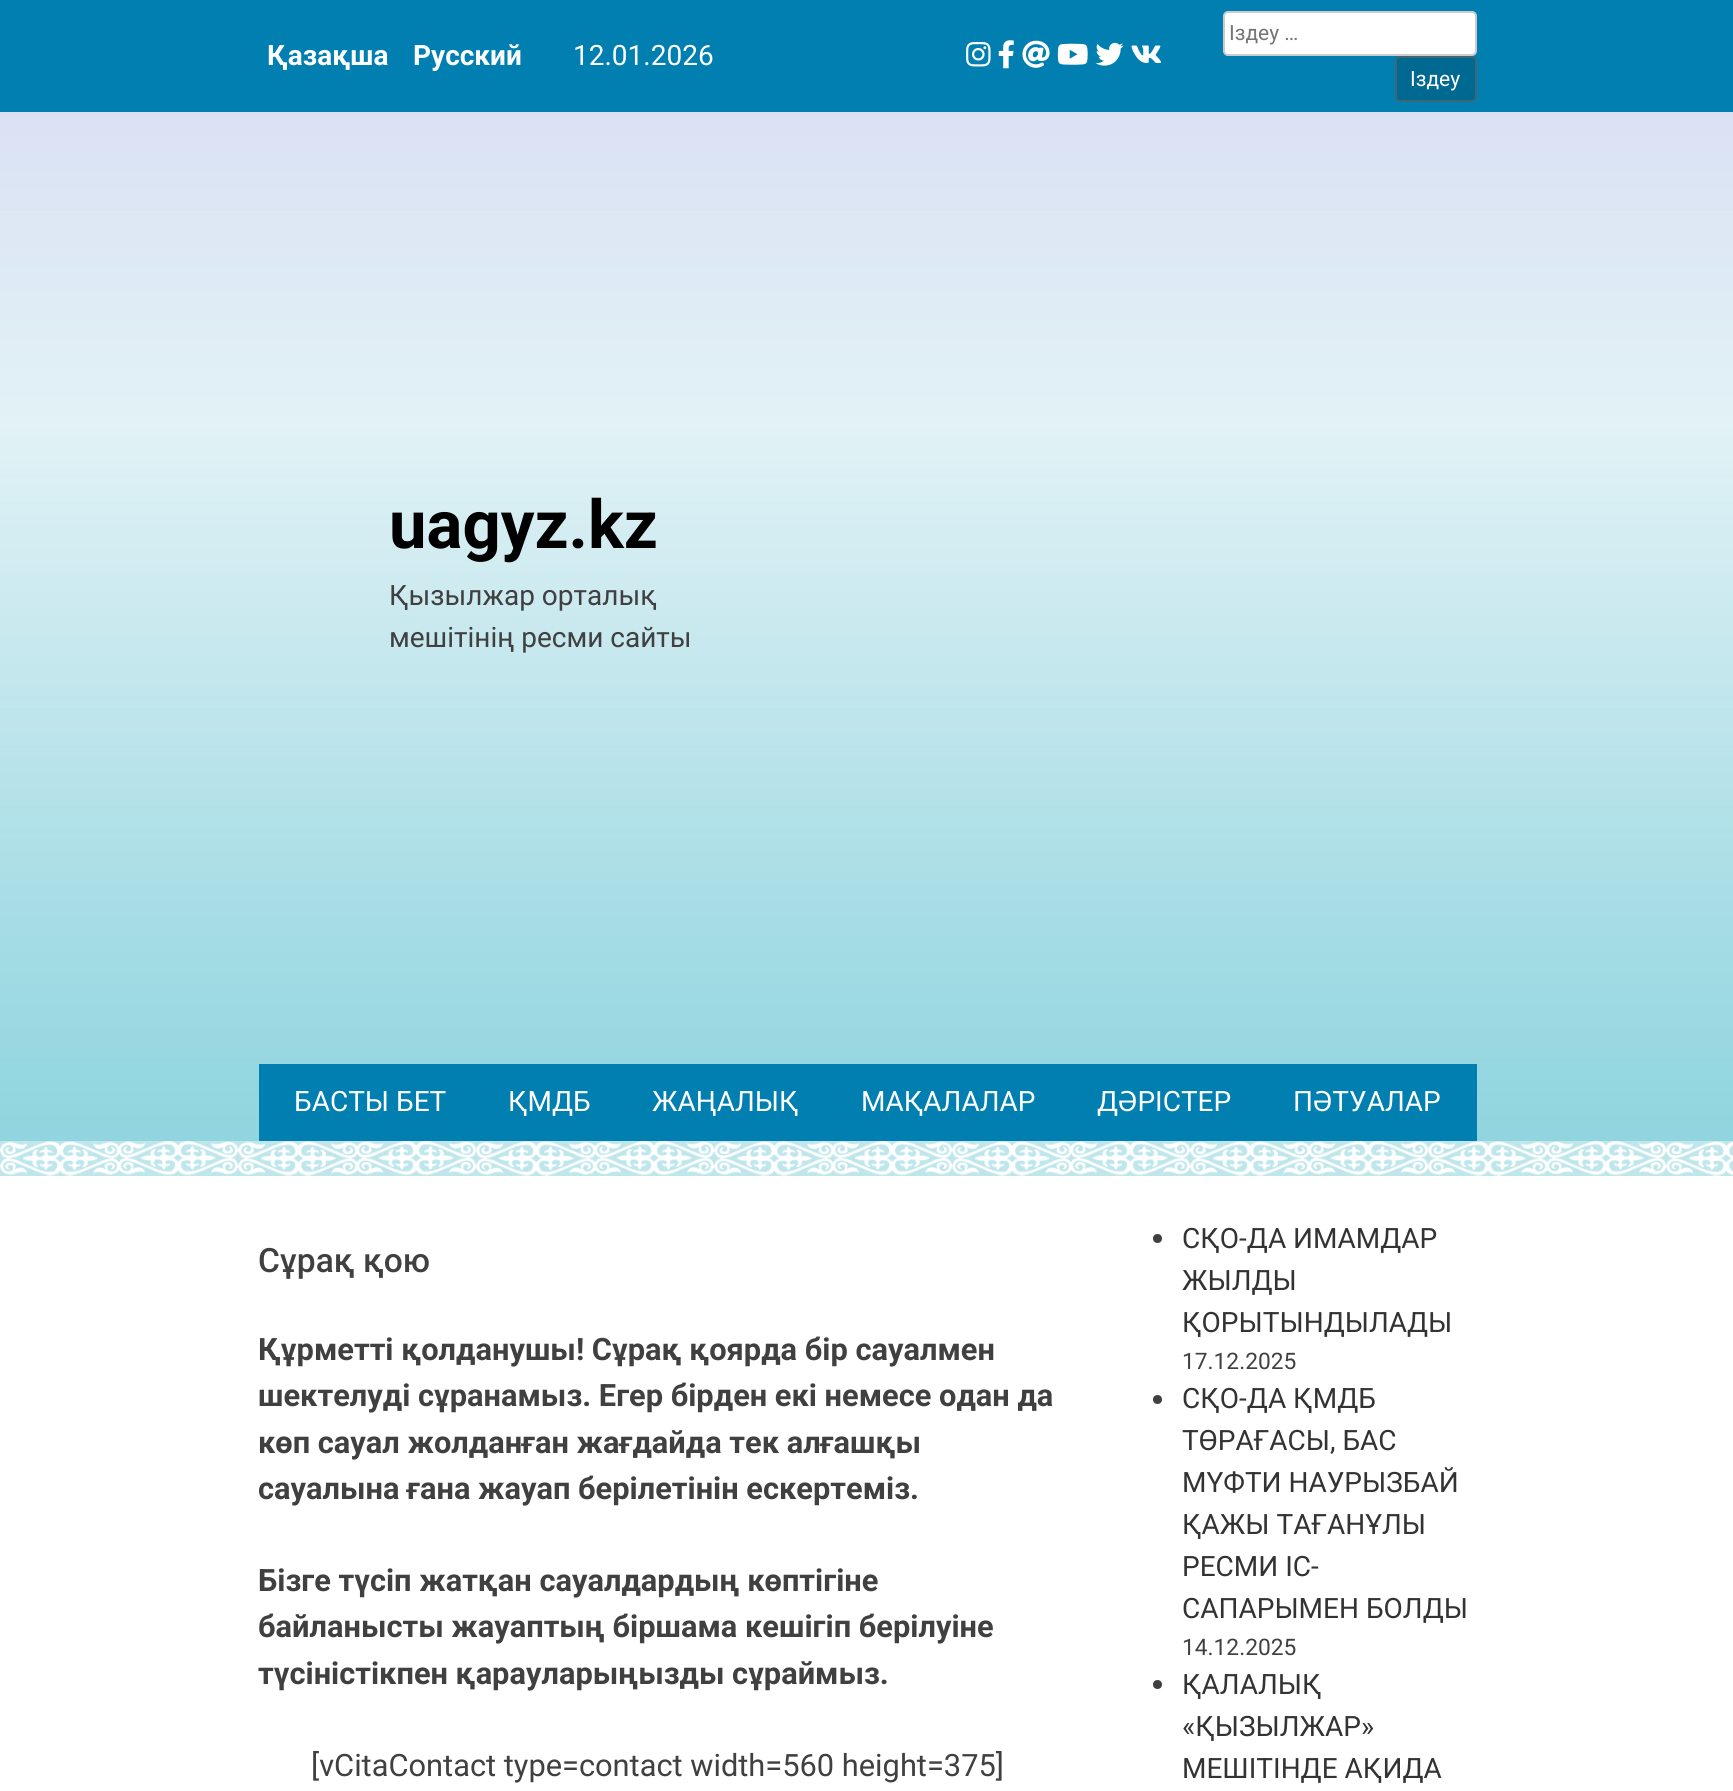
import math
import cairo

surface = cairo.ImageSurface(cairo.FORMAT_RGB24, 1733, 1791)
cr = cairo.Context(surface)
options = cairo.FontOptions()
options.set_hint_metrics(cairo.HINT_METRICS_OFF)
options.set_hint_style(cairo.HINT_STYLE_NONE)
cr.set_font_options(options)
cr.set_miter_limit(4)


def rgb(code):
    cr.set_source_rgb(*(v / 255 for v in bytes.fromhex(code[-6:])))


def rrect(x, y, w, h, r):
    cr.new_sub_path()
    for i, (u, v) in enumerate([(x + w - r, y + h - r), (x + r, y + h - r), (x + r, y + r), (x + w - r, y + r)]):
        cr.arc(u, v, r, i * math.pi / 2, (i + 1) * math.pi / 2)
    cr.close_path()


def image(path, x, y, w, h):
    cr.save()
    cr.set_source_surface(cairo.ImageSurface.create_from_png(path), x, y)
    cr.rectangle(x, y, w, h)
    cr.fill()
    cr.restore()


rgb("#ffffff")
cr.paint()
image("img/1.png", 0, 112, 1733, 1029)
rgb("#007fb0")
cr.rectangle(0, 0, 1733, 112)
cr.fill()
image("img/2.png", 966, 42, 25, 25)
image("img/3.png", 998, 40, 16, 29)
image("img/4.png", 1022, 40, 28, 28)
image("img/5.png", 1057, 43, 31, 22)
image("img/6.png", 1095, 42, 29, 24)
image("img/7.png", 1131, 45, 30, 18)
rgb("#ffffff")
rrect(1224, 12, 252, 43, 4)
cr.fill_preserve()
rgb("#cccccc")
cr.stroke()
rgb("#006992")
rrect(1396, 57, 80, 44, 4)
cr.fill_preserve()
rgb("#406674")
cr.stroke()
rgb("#007fb0")
cr.rectangle(259, 1064, 1218, 77)
cr.fill()
rgb("#bee6eb")
cr.rectangle(0, 1141, 1733, 35)
cr.fill()
image("img/8.png", 0, 1141, 1733, 35)
rgb("#404040")
cr.arc(1157.5, 1238.5, 4.5, 0, 2 * math.pi)
cr.fill()
cr.arc(1157.5, 1399.5, 4.5, 0, 2 * math.pi)
cr.fill()
cr.arc(1157.5, 1684.5, 4.5, 0, 2 * math.pi)
cr.fill()
cr.select_font_face("Roboto", cairo.FONT_SLANT_NORMAL, cairo.FONT_WEIGHT_BOLD)
cr.set_font_size(28)
rgb("#ffffff")
cr.move_to(267, 65)
cr.show_text("Қазақша")
cr.move_to(413, 65)
cr.show_text("Русский")
cr.select_font_face("Roboto")
cr.move_to(573, 65)
cr.show_text("12.01.2026")
cr.set_font_size(21)
rgb("#757575")
cr.move_to(1229, 40)
cr.show_text("Іздеу …")
rgb("#ffffff")
cr.move_to(1410, 86)
cr.show_text("Іздеу")
cr.select_font_face("Roboto", cairo.FONT_SLANT_NORMAL, cairo.FONT_WEIGHT_BOLD)
cr.set_font_size(67)
rgb("#000000")
cr.move_to(389, 548)
cr.show_text("uagyz.kz")
cr.select_font_face("Roboto")
cr.set_font_size(28)
rgb("#404040")
cr.move_to(389, 605)
cr.show_text("Қызылжар орталық")
cr.move_to(389, 647)
cr.show_text("мешітінің ресми сайты")
rgb("#ffffff")
for x, y, s in [
    (294, 1111, "БАСТЫ БЕТ"),
    (508, 1111, "ҚМДБ"),
    (652, 1111, "ЖАҢАЛЫҚ"),
    (861, 1111, "МАҚАЛАЛАР"),
    (1097, 1111, "ДӘРІСТЕР"),
    (1293, 1111, "ПӘТУАЛАР"),
]:
    cr.move_to(x, y)
    cr.show_text(s)
cr.select_font_face("Roboto Medium")
cr.set_font_size(33.5)
rgb("#404040")
cr.move_to(258, 1272)
cr.show_text("Сұрақ қою")
cr.select_font_face("Roboto", cairo.FONT_SLANT_NORMAL, cairo.FONT_WEIGHT_BOLD)
cr.set_font_size(30.8)
for x, y, s in [
    (258, 1360, "Құрметті қолданушы! Сұрақ қоярда бір сауалмен"),
    (258, 1406, "шектелуді сұранамыз. Егер бірден екі немесе одан да"),
    (258, 1453, "көп сауал жолданған жағдайда тек алғашқы"),
    (258, 1499, "сауалына ғана жауап берілетінін ескертеміз."),
    (258, 1591, "Бізге түсіп жатқан сауалдардың көптігіне"),
    (258, 1637, "байланысты жауаптың біршама кешігіп берілуіне"),
    (258, 1684, "түсіністікпен қарауларыңызды сұраймыз."),
]:
    cr.move_to(x, y)
    cr.show_text(s)
cr.select_font_face("Roboto")
cr.move_to(311, 1776)
cr.show_text("[vCitaContact type=contact width=560 height=375]")
cr.set_font_size(28)
rgb("#333333")
for x, y, s in [
    (1182, 1248, "СҚО-ДА ИМАМДАР"),
    (1182, 1290, "ЖЫЛДЫ"),
    (1182, 1332, "ҚОРЫТЫНДЫЛАДЫ"),
]:
    cr.move_to(x, y)
    cr.show_text(s)
cr.set_font_size(22.75)
rgb("#404040")
cr.move_to(1182, 1369)
cr.show_text("17.12.2025")
cr.set_font_size(28)
rgb("#333333")
for x, y, s in [
    (1182, 1408, "СҚО-ДА ҚМДБ"),
    (1182, 1450, "ТӨРАҒАСЫ, БАС"),
    (1182, 1492, "МҮФТИ НАУРЫЗБАЙ"),
    (1182, 1534, "ҚАЖЫ ТАҒАНҰЛЫ"),
    (1182, 1576, "РЕСМИ ІС-"),
    (1182, 1618, "САПАРЫМЕН БОЛДЫ"),
]:
    cr.move_to(x, y)
    cr.show_text(s)
cr.set_font_size(22.75)
rgb("#404040")
cr.move_to(1182, 1655)
cr.show_text("14.12.2025")
cr.set_font_size(28)
rgb("#333333")
for x, y, s in [
    (1182, 1694, "ҚАЛАЛЫҚ"),
    (1182, 1736, "«ҚЫЗЫЛЖАР»"),
    (1182, 1778, "МЕШІТІНДЕ АҚИДА"),
]:
    cr.move_to(x, y)
    cr.show_text(s)
surface.write_to_png("page.png")
